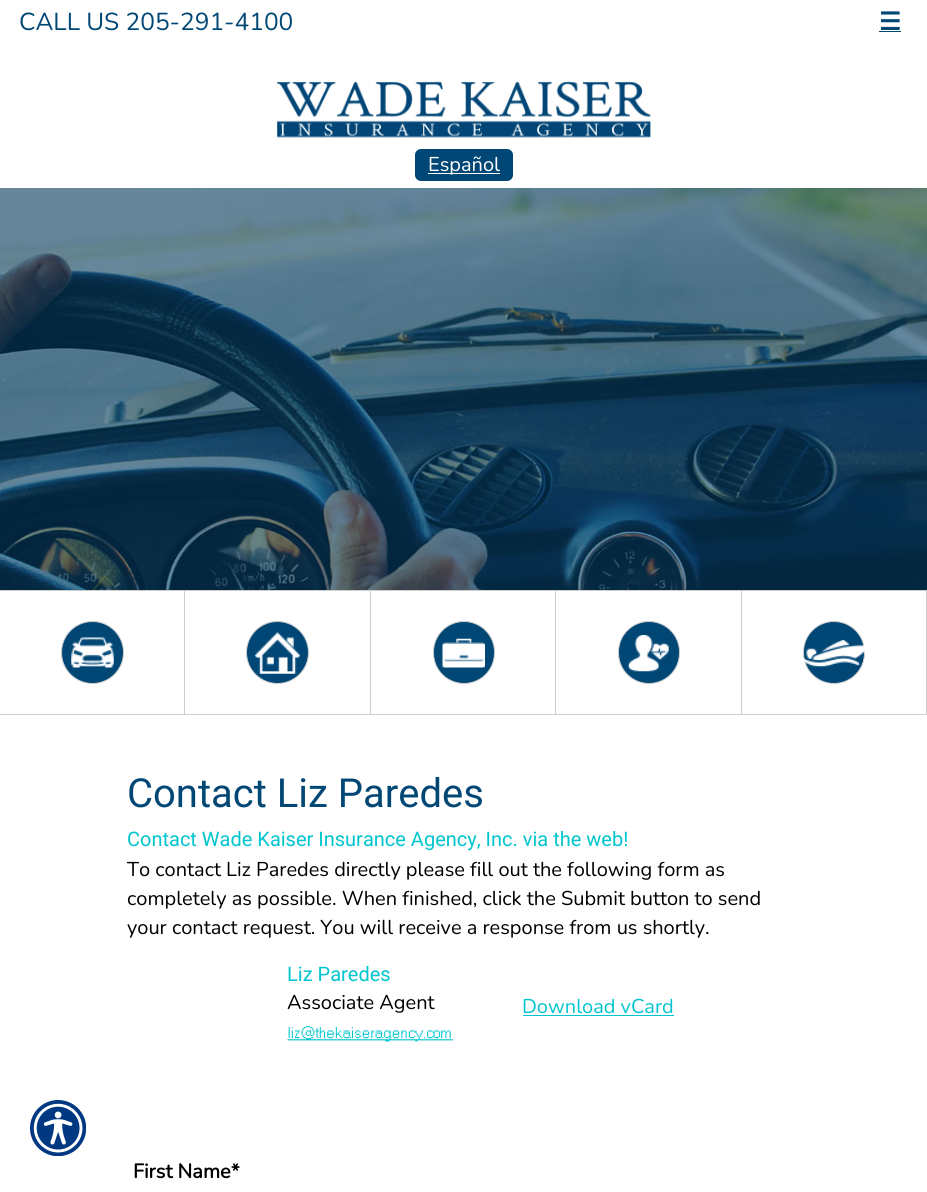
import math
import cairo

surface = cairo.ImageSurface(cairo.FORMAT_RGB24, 927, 1192)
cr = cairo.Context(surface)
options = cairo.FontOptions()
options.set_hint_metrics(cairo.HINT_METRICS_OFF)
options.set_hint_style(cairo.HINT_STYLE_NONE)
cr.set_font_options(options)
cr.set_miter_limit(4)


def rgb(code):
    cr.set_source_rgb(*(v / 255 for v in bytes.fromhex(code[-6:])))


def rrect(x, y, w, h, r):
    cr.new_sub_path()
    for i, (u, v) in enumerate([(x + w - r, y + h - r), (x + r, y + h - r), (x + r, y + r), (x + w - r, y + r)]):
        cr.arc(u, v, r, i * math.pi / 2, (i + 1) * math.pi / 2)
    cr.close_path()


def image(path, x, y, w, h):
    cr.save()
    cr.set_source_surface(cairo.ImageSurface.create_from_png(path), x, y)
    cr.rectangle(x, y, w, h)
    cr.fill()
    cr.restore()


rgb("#ffffff")
cr.paint()
rgb("#014776")
cr.rectangle(879, 31, 22, 1)
cr.fill()
image("img/1.png", 276, 81, 375, 57)
rrect(415, 149, 98, 32, 6)
cr.fill()
rgb("#ffffff")
cr.rectangle(428, 173, 72, 1)
cr.fill()
image("img/2.png", 0, 188, 927, 402)
for x, y, w, h, color in [
    (0, 590, 927, 1, "#cdcdcd"),
    (184, 590, 1, 125, "#cdcdcd"),
    (0, 714, 185, 1, "#cdcdcd"),
]:
    rgb(color)
    cr.rectangle(x, y, w, h)
    cr.fill()
rgb("#014776")
cr.arc(92.5, 652.5, 31, 0, 2 * math.pi)
cr.fill_preserve()
rgb("#cdcdcd")
cr.set_line_width(1)
cr.stroke()
image("img/3.png", 71, 637, 43, 31)
cr.rectangle(370, 590, 1, 125)
cr.fill()
cr.rectangle(185, 714, 186, 1)
cr.fill()
rgb("#014776")
cr.arc(277.5, 652.5, 31, 0, 2 * math.pi)
cr.fill_preserve()
rgb("#cdcdcd")
cr.stroke()
image("img/4.png", 255, 632, 45, 42)
cr.rectangle(555, 590, 1, 125)
cr.fill()
cr.rectangle(371, 714, 185, 1)
cr.fill()
rgb("#014776")
rrect(433.5, 621.5, 61, 62, 30.5)
cr.fill_preserve()
rgb("#cdcdcd")
cr.stroke()
image("img/5.png", 442, 638, 43, 30)
cr.rectangle(741, 590, 1, 125)
cr.fill()
cr.rectangle(556, 714, 187, 1)
cr.fill()
rgb("#014776")
rrect(618.5, 621.5, 61, 62, 30.5)
cr.fill_preserve()
rgb("#cdcdcd")
cr.stroke()
image("img/6.png", 628, 635, 41, 37)
cr.rectangle(926, 590, 1, 125)
cr.fill()
cr.rectangle(743, 714, 184, 1)
cr.fill()
rgb("#014776")
rrect(803.5, 621.5, 61, 62, 30.5)
cr.fill_preserve()
rgb("#cdcdcd")
cr.stroke()
image("img/7.png", 803, 640, 62, 27)
image("img/8.png", 287, 1025, 166, 17)
rgb("#01c5ce")
cr.rectangle(523, 1015, 151, 1)
cr.fill()
image("img/9.png", 30, 1100, 56, 56)
cr.select_font_face("Nunito ExtraLight")
cr.set_font_size(24.5)
rgb("#014776")
cr.move_to(19, 30)
cr.show_text("CALL US 205-291-4100")
cr.select_font_face("DejaVu Sans", cairo.FONT_SLANT_NORMAL, cairo.FONT_WEIGHT_BOLD)
cr.move_to(879, 30)
cr.show_text("☰")
cr.select_font_face("Nunito ExtraLight")
cr.set_font_size(20)
rgb("#ffffff")
cr.move_to(428, 171)
cr.show_text("Español")
cr.select_font_face("Roboto")
cr.set_font_size(40)
rgb("#014776")
cr.move_to(127, 807)
cr.show_text("Contact Liz Paredes")
cr.set_font_size(20)
rgb("#01c5ce")
cr.move_to(127, 846)
cr.show_text("Contact Wade Kaiser Insurance Agency, Inc. via the web!")
cr.select_font_face("Nunito ExtraLight")
rgb("#000000")
for x, y, s in [
    (127, 876, "To contact Liz Paredes directly please fill out the following form as"),
    (127, 905, "completely as possible. When finished, click the Submit button to send"),
    (127, 934, "your contact request. You will receive a response from us shortly."),
]:
    cr.move_to(x, y)
    cr.show_text(s)
cr.select_font_face("Roboto")
rgb("#01c5ce")
cr.move_to(287, 981)
cr.show_text("Liz Paredes")
cr.select_font_face("Nunito ExtraLight")
rgb("#000000")
cr.move_to(287, 1009)
cr.show_text("Associate Agent")
rgb("#01c5ce")
cr.move_to(522, 1013)
cr.show_text("Download vCard")
cr.select_font_face("Nunito", cairo.FONT_SLANT_NORMAL, cairo.FONT_WEIGHT_BOLD)
rgb("#000000")
cr.move_to(133, 1178)
cr.show_text("First Name*")
surface.write_to_png("page.png")
